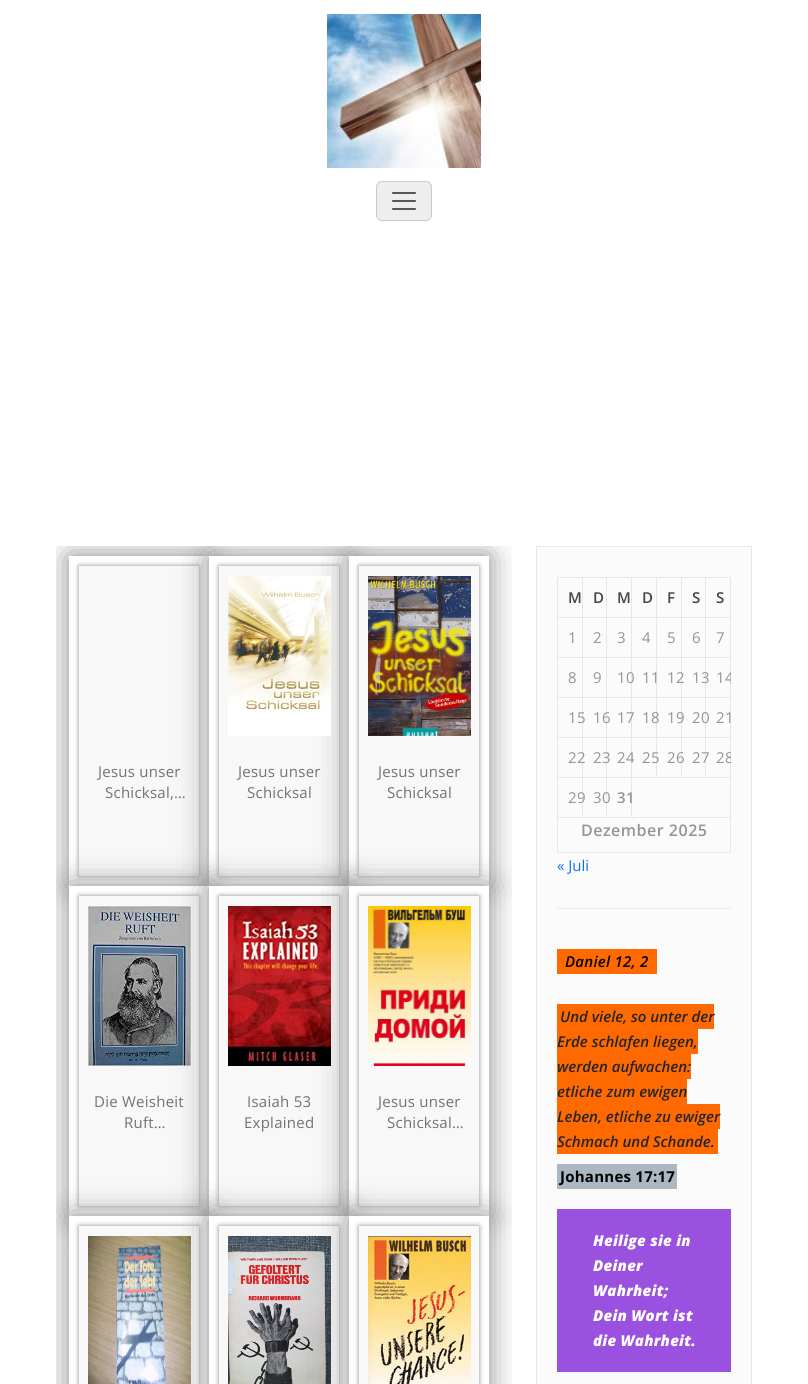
import math
import cairo

surface = cairo.ImageSurface(cairo.FORMAT_RGB24, 808, 1384)
cr = cairo.Context(surface)
options = cairo.FontOptions()
options.set_hint_metrics(cairo.HINT_METRICS_OFF)
options.set_hint_style(cairo.HINT_STYLE_NONE)
cr.set_font_options(options)
cr.set_miter_limit(4)


def rgb(code):
    cr.set_source_rgb(*(v / 255 for v in bytes.fromhex(code[-6:])))


def tracked(x, y, s, letter, word):
    cr.move_to(x, y)
    for ch in s:
        cr.show_text(ch)
        cr.rel_move_to(letter + word * (ch == ' '), 0)


def rrect(x, y, w, h, r):
    cr.new_sub_path()
    for i, (u, v) in enumerate([(x + w - r, y + h - r), (x + r, y + h - r), (x + r, y + r), (x + w - r, y + r)]):
        cr.arc(u, v, r, i * math.pi / 2, (i + 1) * math.pi / 2)
    cr.close_path()


def soft_shadow(x, y, w, h, r, blur, alpha):
    cr.push_group_with_content(cairo.CONTENT_ALPHA)
    cr.set_operator(cairo.OPERATOR_SOURCE)
    for i in range(15, -16, -2):
        e = blur * i / 6
        if min(w, h) + 2 * e > 0:
            cr.set_source_rgba(0, 0, 0, alpha * math.erfc((i - 1) / 8.5) / 2)
            rrect(x - e, y - e, w + 2 * e, h + 2 * e, max(0, min(r + e + blur * .6, min(w, h) / 2 + e)))
            cr.fill()
    cr.mask(cr.pop_group())


def image(path, x, y, w, h):
    cr.save()
    cr.set_source_surface(cairo.ImageSurface.create_from_png(path), x, y)
    cr.rectangle(x, y, w, h)
    cr.fill()
    cr.restore()


rgb("#ffffff")
cr.paint()
image("img/1.png", 327, 14, 154, 154)
rgb("#eeeeee")
rrect(376, 181, 56, 40, 6)
cr.fill()
rrect(376.5, 181.5, 55, 39, 5.5)
cr.set_source_rgba(0, 0, 0, 0.15)
cr.set_line_width(1)
cr.stroke()
image("img/2.png", 392, 192, 24, 18)
cr.save()
cr.rectangle(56, 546, 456, 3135)
cr.clip()
cr.set_fill_rule(cairo.FILL_RULE_EVEN_ODD)
cr.new_path()
cr.move_to(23, 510)
cr.line_to(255, 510)
cr.line_to(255, 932)
cr.line_to(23, 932)
cr.close_path()
cr.move_to(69, 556)
cr.line_to(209, 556)
cr.line_to(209, 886)
cr.line_to(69, 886)
cr.close_path()
cr.clip()
rgb("#888888")
soft_shadow(69, 556, 140, 330, 0, 15, 1)
cr.restore()
rgb("#888888")
soft_shadow(79, 566, 120, 310, 0, 2.5, 1)
rgb("#f8f8f8")
cr.rectangle(79, 566, 120, 310)
cr.fill()
cr.save()
cr.rectangle(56, 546, 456, 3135)
cr.clip()
rgb("#888888")
soft_shadow(209, 556, 140, 330, 0, 15, 1)
cr.restore()
rgb("#ffffff")
cr.rectangle(209, 556, 140, 330)
cr.fill()
rgb("#888888")
soft_shadow(219, 566, 120, 310, 0, 2.5, 1)
rgb("#f8f8f8")
cr.rectangle(219, 566, 120, 310)
cr.fill()
cr.save()
cr.rectangle(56, 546, 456, 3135)
cr.clip()
rgb("#888888")
soft_shadow(349, 556, 140, 330, 0, 15, 1)
cr.restore()
image("img/3.png", 228, 576, 103, 160)
rgb("#ffffff")
cr.rectangle(349, 556, 140, 330)
cr.fill()
rgb("#888888")
soft_shadow(359, 566, 120, 310, 0, 2.5, 1)
rgb("#f8f8f8")
cr.rectangle(359, 566, 120, 310)
cr.fill()
image("img/4.png", 368, 576, 103, 160)
cr.save()
cr.rectangle(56, 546, 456, 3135)
cr.clip()
rgb("#888888")
soft_shadow(69, 886, 140, 330, 0, 15, 1)
cr.restore()
rgb("#ffffff")
cr.rectangle(69, 886, 140, 330)
cr.fill()
rgb("#888888")
soft_shadow(79, 896, 120, 310, 0, 2.5, 1)
rgb("#f8f8f8")
cr.rectangle(79, 896, 120, 310)
cr.fill()
rgb("#888888")
soft_shadow(209, 886, 140, 330, 0, 15, 1)
image("img/5.png", 88, 906, 103, 160)
rgb("#ffffff")
cr.rectangle(209, 886, 140, 330)
cr.fill()
rgb("#888888")
soft_shadow(219, 896, 120, 310, 0, 2.5, 1)
rgb("#f8f8f8")
cr.rectangle(219, 896, 120, 310)
cr.fill()
cr.save()
cr.rectangle(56, 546, 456, 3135)
cr.clip()
rgb("#888888")
soft_shadow(349, 886, 140, 330, 0, 15, 1)
cr.restore()
image("img/6.png", 228, 906, 103, 160)
rgb("#ffffff")
cr.rectangle(349, 886, 140, 330)
cr.fill()
rgb("#888888")
soft_shadow(359, 896, 120, 310, 0, 2.5, 1)
rgb("#f8f8f8")
cr.rectangle(359, 896, 120, 310)
cr.fill()
image("img/7.png", 368, 906, 103, 160)
cr.save()
cr.rectangle(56, 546, 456, 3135)
cr.clip()
rgb("#888888")
soft_shadow(69, 1216, 140, 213, 0, 15, 1)
cr.restore()
rgb("#ffffff")
cr.rectangle(69, 1216, 140, 168)
cr.fill()
rgb("#888888")
soft_shadow(79, 1226, 120, 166, 0, 2.5, 1)
rgb("#f8f8f8")
cr.rectangle(79, 1226, 120, 158)
cr.fill()
rgb("#888888")
soft_shadow(209, 1216, 140, 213, 0, 15, 1)
image("img/8.png", 88, 1236, 103, 148)
rgb("#ffffff")
cr.rectangle(209, 1216, 140, 168)
cr.fill()
rgb("#888888")
soft_shadow(219, 1226, 120, 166, 0, 2.5, 1)
rgb("#f8f8f8")
cr.rectangle(219, 1226, 120, 158)
cr.fill()
cr.save()
cr.rectangle(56, 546, 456, 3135)
cr.clip()
rgb("#888888")
soft_shadow(349, 1216, 140, 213, 0, 15, 1)
cr.restore()
image("img/9.png", 228, 1236, 103, 148)
rgb("#ffffff")
cr.rectangle(349, 1216, 140, 168)
cr.fill()
rgb("#888888")
soft_shadow(359, 1226, 120, 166, 0, 2.5, 1)
rgb("#f8f8f8")
cr.rectangle(359, 1226, 120, 158)
cr.fill()
image("img/10.png", 368, 1236, 103, 148)
rgb("#fbfbfb")
cr.rectangle(536.5, 546.5, 215, 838)
cr.fill_preserve()
rgb("#e9e9e9")
cr.stroke()
for x, y, w, h, color in [
    (557, 908, 174, 1, "#e9e9e9"),
    (730, 818, 1, 35, "#e9e9e9"),
    (557, 852, 174, 1, "#e9e9e9"),
    (557, 818, 1, 35, "#e9e9e9"),
    (705, 577, 26, 1, "#e8e7e7"),
    (705, 617, 26, 1, "#e8e7e7"),
    (705, 657, 26, 1, "#e8e7e7"),
    (705, 697, 26, 1, "#e8e7e7"),
    (705, 737, 26, 1, "#e8e7e7"),
    (631, 777, 100, 1, "#e8e7e7"),
    (705, 737, 1, 41, "#e8e7e7"),
    (681, 737, 25, 1, "#e8e7e7"),
    (705, 697, 1, 41, "#e8e7e7"),
    (681, 697, 25, 1, "#e8e7e7"),
    (705, 657, 1, 41, "#e8e7e7"),
    (681, 657, 25, 1, "#e8e7e7"),
    (705, 617, 1, 41, "#e8e7e7"),
    (681, 617, 25, 1, "#e8e7e7"),
    (705, 577, 1, 41, "#e8e7e7"),
    (681, 577, 25, 1, "#e8e7e7"),
    (681, 737, 1, 41, "#e8e7e7"),
    (656, 737, 26, 1, "#e8e7e7"),
    (681, 697, 1, 41, "#e8e7e7"),
    (656, 697, 26, 1, "#e8e7e7"),
    (681, 657, 1, 41, "#e8e7e7"),
    (656, 657, 26, 1, "#e8e7e7"),
    (681, 617, 1, 41, "#e8e7e7"),
    (656, 617, 26, 1, "#e8e7e7"),
    (681, 577, 1, 41, "#e8e7e7"),
    (656, 577, 26, 1, "#e8e7e7"),
    (656, 737, 1, 41, "#e8e7e7"),
    (631, 737, 26, 1, "#e8e7e7"),
    (656, 697, 1, 41, "#e8e7e7"),
    (631, 697, 26, 1, "#e8e7e7"),
    (656, 657, 1, 41, "#e8e7e7"),
    (631, 657, 26, 1, "#e8e7e7"),
    (656, 617, 1, 41, "#e8e7e7"),
    (631, 617, 26, 1, "#e8e7e7"),
    (656, 577, 1, 41, "#e8e7e7"),
    (631, 577, 26, 1, "#e8e7e7"),
    (730, 777, 1, 41, "#e8e7e7"),
    (631, 817, 100, 1, "#e8e7e7"),
    (631, 777, 1, 41, "#e8e7e7"),
    (606, 777, 26, 1, "#e8e7e7"),
    (631, 737, 1, 41, "#e8e7e7"),
    (606, 737, 26, 1, "#e8e7e7"),
    (631, 697, 1, 41, "#e8e7e7"),
    (606, 697, 26, 1, "#e8e7e7"),
    (631, 657, 1, 41, "#e8e7e7"),
    (606, 657, 26, 1, "#e8e7e7"),
    (631, 617, 1, 41, "#e8e7e7"),
    (606, 617, 26, 1, "#e8e7e7"),
    (631, 577, 1, 41, "#e8e7e7"),
    (606, 577, 26, 1, "#e8e7e7"),
    (606, 817, 26, 1, "#e8e7e7"),
    (606, 777, 1, 41, "#e8e7e7"),
    (582, 777, 25, 1, "#e8e7e7"),
    (606, 737, 1, 41, "#e8e7e7"),
    (582, 737, 25, 1, "#e8e7e7"),
    (606, 697, 1, 41, "#e8e7e7"),
    (582, 697, 25, 1, "#e8e7e7"),
    (606, 657, 1, 41, "#e8e7e7"),
    (582, 657, 25, 1, "#e8e7e7"),
    (606, 617, 1, 41, "#e8e7e7"),
    (582, 617, 25, 1, "#e8e7e7"),
    (606, 577, 1, 41, "#e8e7e7"),
    (582, 577, 25, 1, "#e8e7e7"),
    (582, 817, 25, 1, "#e8e7e7"),
    (582, 777, 1, 41, "#e8e7e7"),
    (557, 777, 26, 1, "#e8e7e7"),
    (582, 737, 1, 41, "#e8e7e7"),
    (557, 737, 26, 1, "#e8e7e7"),
    (582, 697, 1, 41, "#e8e7e7"),
    (557, 697, 26, 1, "#e8e7e7"),
    (582, 657, 1, 41, "#e8e7e7"),
    (557, 657, 26, 1, "#e8e7e7"),
    (582, 617, 1, 41, "#e8e7e7"),
    (557, 617, 26, 1, "#e8e7e7"),
    (582, 577, 1, 41, "#e8e7e7"),
    (557, 577, 26, 1, "#e8e7e7"),
    (557, 817, 26, 1, "#e8e7e7"),
    (557, 777, 1, 41, "#e8e7e7"),
    (557, 737, 1, 41, "#e8e7e7"),
    (557, 697, 1, 41, "#e8e7e7"),
    (557, 657, 1, 41, "#e8e7e7"),
    (557, 617, 1, 41, "#e8e7e7"),
    (557, 577, 1, 41, "#e8e7e7"),
    (730, 737, 1, 41, "#e8e7e7"),
    (730, 697, 1, 41, "#e8e7e7"),
    (730, 657, 1, 41, "#e8e7e7"),
    (730, 617, 1, 41, "#e8e7e7"),
    (730, 577, 1, 41, "#e8e7e7"),
    (557, 949, 100, 25, "#ff6900"),
    (557, 1004, 157, 25, "#ff6900"),
    (557, 1029, 141, 25, "#ff6900"),
    (557, 1054, 134, 25, "#ff6900"),
    (557, 1079, 130, 25, "#ff6900"),
    (557, 1104, 163, 25, "#ff6900"),
    (557, 1129, 161, 25, "#ff6900"),
    (557, 1164, 120, 25, "#abb8c3"),
    (557, 1209, 174, 163, "#9b51e0"),
]:
    rgb(color)
    cr.rectangle(x, y, w, h)
    cr.fill()
cr.select_font_face("Open Sans")
cr.set_font_size(15)
rgb("#727272")
for x, y, s in [
    (98, 777, "Jesus unser"),
    (105, 798, "Schicksal,…"),
    (238, 777, "Jesus unser"),
    (247, 798, "Schicksal"),
    (378, 777, "Jesus unser"),
    (387, 798, "Schicksal"),
    (94, 1107, "Die Weisheit"),
    (124, 1128, "Ruft…"),
    (247, 1107, "Isaiah 53"),
    (244, 1128, "Explained"),
    (378, 1107, "Jesus unser"),
    (387, 1128, "Schicksal…"),
]:
    tracked(x, y, s, 0.25, 0)
cr.select_font_face("Open Sans SemiBold")
rgb("#40464d")
for x, y, s in [
    (568, 603, "M"),
    (593, 603, "D"),
    (617, 603, "M"),
    (642, 603, "D"),
    (667, 603, "F"),
    (692, 603, "S"),
    (716, 603, "S"),
]:
    tracked(x, y, s, 0.5, 0)
cr.select_font_face("Open Sans")
rgb("#8f969c")
for x, y, s in [
    (568, 643, "1"),
    (593, 643, "2"),
    (617, 643, "3"),
    (642, 643, "4"),
    (667, 643, "5"),
    (692, 643, "6"),
    (716, 643, "7"),
    (568, 683, "8"),
    (593, 683, "9"),
    (617, 683, "10"),
    (642, 683, "11"),
    (667, 683, "12"),
    (692, 683, "13"),
]:
    tracked(x, y, s, 0.5, 0)
cr.save()
cr.rectangle(557, 577, 174, 331)
cr.clip()
tracked(716, 683, "14", 0.5, 0)
cr.restore()
for x, y, s in [
    (568, 723, "15"),
    (593, 723, "16"),
    (617, 723, "17"),
    (642, 723, "18"),
    (667, 723, "19"),
    (692, 723, "20"),
    (716, 723, "21"),
    (568, 763, "22"),
    (593, 763, "23"),
    (617, 763, "24"),
    (642, 763, "25"),
    (667, 763, "26"),
    (692, 763, "27"),
]:
    tracked(x, y, s, 0.5, 0)
cr.save()
cr.rectangle(557, 577, 174, 331)
cr.clip()
tracked(716, 763, "28", 0.5, 0)
cr.restore()
tracked(568, 803, "29", 0.5, 0)
tracked(593, 803, "30", 0.5, 0)
cr.select_font_face("Open Sans SemiBold")
tracked(617, 803, "31", 0.5, 0)
cr.set_font_size(16)
tracked(581, 836, "Dezember 2025", 0.5, 0)
cr.select_font_face("Open Sans")
cr.set_font_size(15)
rgb("#0d6efd")
cr.move_to(557, 871)
cr.show_text("« Juli")
cr.select_font_face("Open Sans SemiBold", cairo.FONT_SLANT_ITALIC)
rgb("#000000")
tracked(565, 967, "Daniel 12, 2", 0.25, 0)
rgb("#212529")
for x, y, s in [
    (560, 1022, "Und viele, so unter der"),
    (557, 1047, "Erde schlafen liegen,"),
    (557, 1072, "werden aufwachen:"),
    (557, 1097, "etliche zum ewigen"),
    (557, 1122, "Leben, etliche zu ewiger"),
    (557, 1147, "Schmach und Schande."),
]:
    cr.move_to(x, y)
    cr.show_text(s)
cr.select_font_face("Open Sans", cairo.FONT_SLANT_NORMAL, cairo.FONT_WEIGHT_BOLD)
rgb("#000000")
tracked(560, 1182, "Johannes 17:17", 0.25, 0)
cr.select_font_face("Open Sans ExtraBold", cairo.FONT_SLANT_ITALIC)
rgb("#ffffff")
for x, y, s in [
    (593, 1246, "Heilige sie in"),
    (593, 1271, "Deiner"),
    (593, 1296, "Wahrheit;"),
    (593, 1321, "Dein Wort ist"),
    (593, 1346, "die Wahrheit."),
]:
    tracked(x, y, s, 0.25, 0)
surface.write_to_png("page.png")
